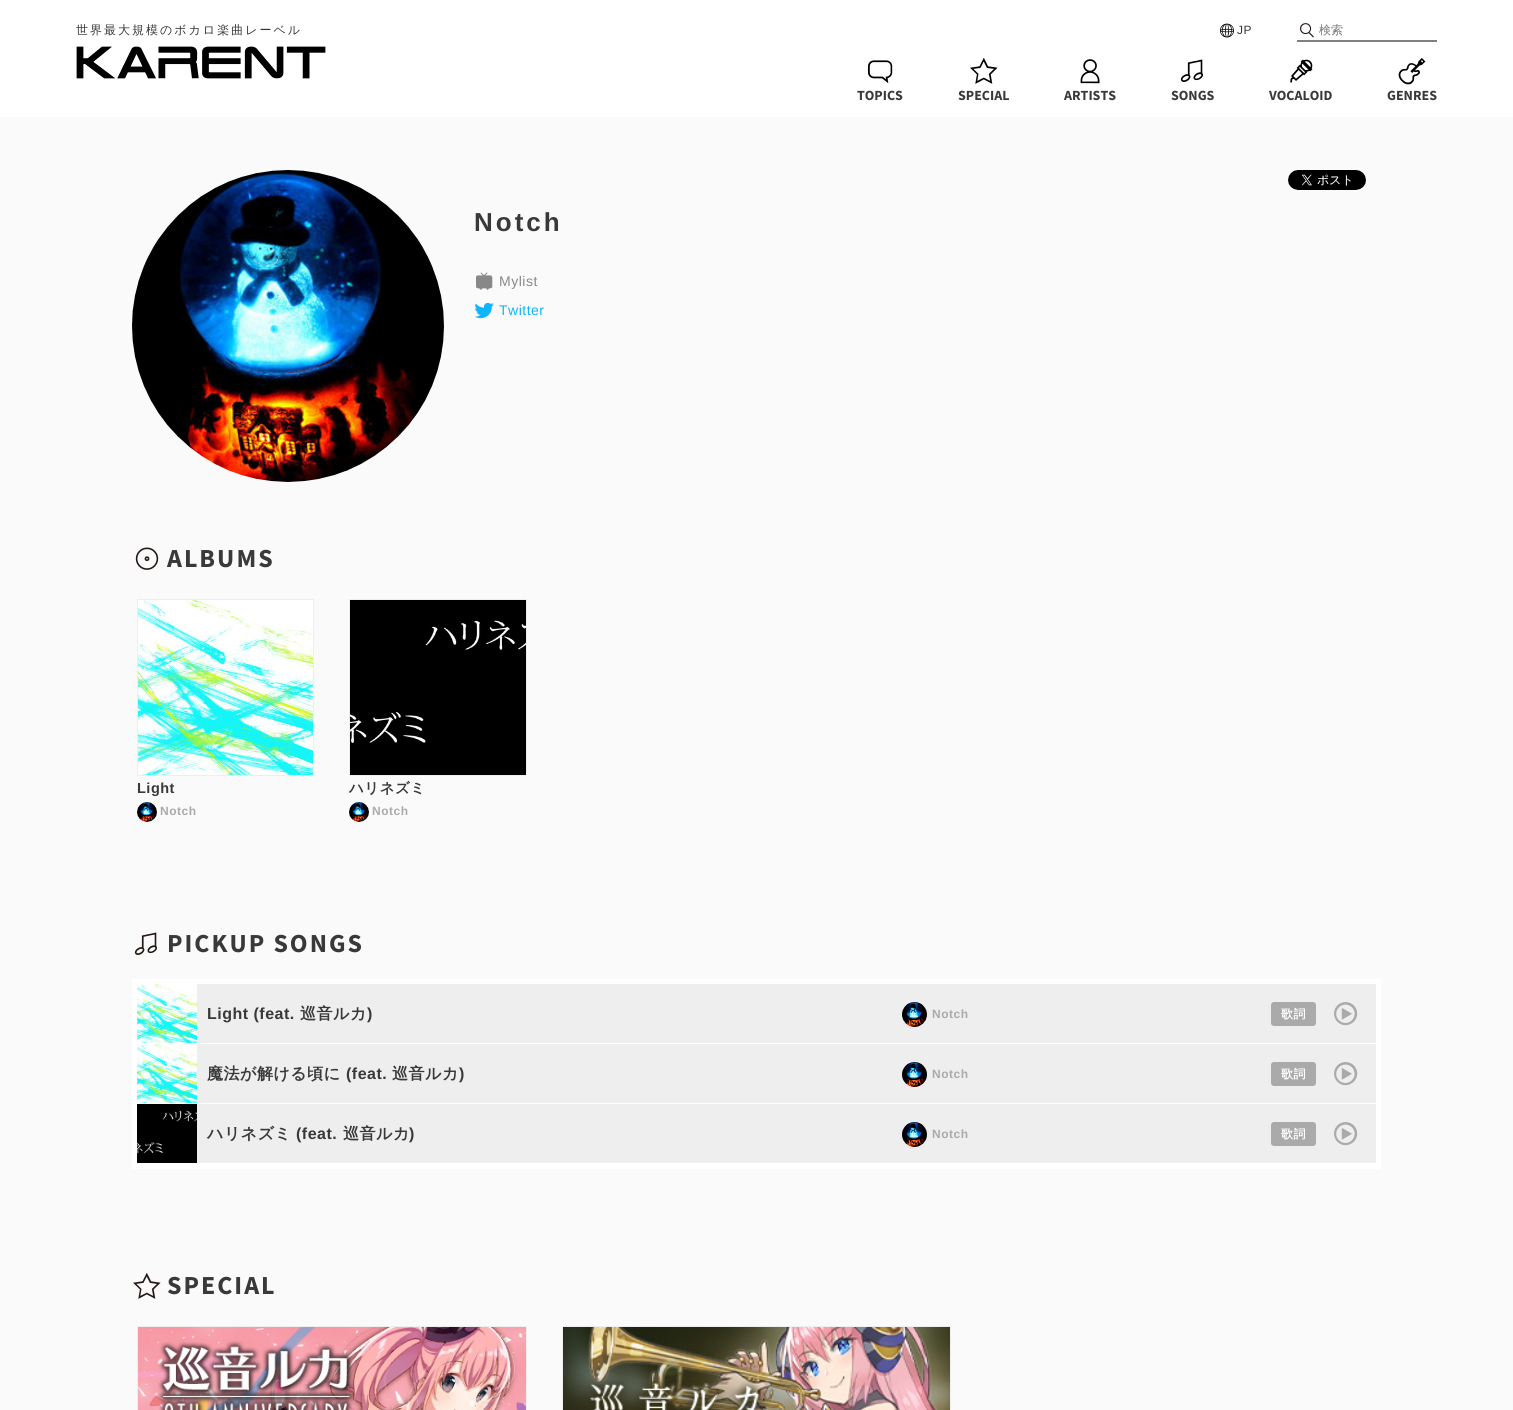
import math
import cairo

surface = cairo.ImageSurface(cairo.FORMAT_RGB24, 1513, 1410)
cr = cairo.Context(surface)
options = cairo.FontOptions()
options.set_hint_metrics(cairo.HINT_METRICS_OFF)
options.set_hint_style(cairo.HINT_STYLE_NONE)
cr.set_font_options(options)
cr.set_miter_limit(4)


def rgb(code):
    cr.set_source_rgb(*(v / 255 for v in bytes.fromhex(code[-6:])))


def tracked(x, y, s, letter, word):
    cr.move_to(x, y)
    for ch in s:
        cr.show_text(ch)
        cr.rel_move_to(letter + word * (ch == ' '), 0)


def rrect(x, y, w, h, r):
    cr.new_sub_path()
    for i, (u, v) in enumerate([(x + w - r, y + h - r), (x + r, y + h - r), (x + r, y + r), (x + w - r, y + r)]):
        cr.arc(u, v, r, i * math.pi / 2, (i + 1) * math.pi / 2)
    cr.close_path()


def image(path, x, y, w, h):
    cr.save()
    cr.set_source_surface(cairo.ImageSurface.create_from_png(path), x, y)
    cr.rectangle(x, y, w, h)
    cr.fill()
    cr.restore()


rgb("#fafafa")
cr.paint()
rgb("#ffffff")
cr.rectangle(0, 0, 1513, 117)
cr.fill()
image("img/1.png", 1220, 23, 14, 15)
image("img/2.png", 1300, 23, 14, 15)
rgb("#808080")
cr.rectangle(1297, 40, 140, 2)
cr.fill()
image("img/3.png", 76, 46, 250, 33)
image("img/4.png", 868, 60, 25, 24)
image("img/5.png", 970, 57, 28, 27)
image("img/6.png", 1080, 59, 20, 25)
image("img/7.png", 1180, 59, 23, 23)
image("img/8.png", 1290, 59, 23, 24)
image("img/9.png", 1398, 58, 28, 27)
image("img/10.png", 132, 170, 312, 312)
image("img/11.png", 1288, 170, 78, 20)
image("img/12.png", 476, 272, 17, 18)
image("img/13.png", 474, 302, 20, 17)
image("img/14.png", 135, 547, 24, 23)
cr.rectangle(137.5, 599.5, 176, 176)
rgb("#eeeeee")
cr.set_line_width(1)
cr.stroke()
image("img/15.png", 138, 600, 175, 175)
image("img/16.png", 137, 802, 20, 20)
cr.rectangle(349.5, 599.5, 177, 176)
cr.stroke()
image("img/17.png", 350, 600, 176, 175)
image("img/18.png", 349, 802, 20, 20)
image("img/19.png", 134, 932, 23, 23)
cr.rectangle(197, 984, 1179, 179)
cr.fill()
cr.rectangle(134.5, 981.5, 1244, 185)
rgb("#ffffff")
cr.set_line_width(5)
cr.stroke()
cr.rectangle(137, 1043, 1239, 1)
cr.fill()
image("img/20.png", 137, 984, 60, 59)
image("img/21.png", 902, 1002, 25, 25)
rgb("#aaaaaa")
rrect(1271, 1002, 45, 24, 3)
cr.fill()
image("img/22.png", 1334, 1002, 24, 24)
rgb("#ffffff")
cr.rectangle(137, 1103, 1239, 1)
cr.fill()
image("img/20.png", 137, 1044, 60, 59)
image("img/23.png", 902, 1062, 25, 25)
rgb("#aaaaaa")
rrect(1271, 1062, 45, 24, 3)
cr.fill()
image("img/22.png", 1334, 1062, 24, 24)
rgb("#ffffff")
cr.rectangle(137, 1163, 1239, 1)
cr.fill()
image("img/24.png", 137, 1104, 60, 59)
image("img/23.png", 902, 1122, 25, 25)
rgb("#aaaaaa")
rrect(1271, 1122, 45, 24, 3)
cr.fill()
image("img/22.png", 1334, 1122, 24, 24)
image("img/25.png", 133, 1272, 28, 27)
cr.rectangle(137.5, 1326.5, 389, 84)
rgb("#eeeeee")
cr.set_line_width(1)
cr.stroke()
image("img/26.png", 138, 1327, 388, 83)
cr.rectangle(562.5, 1326.5, 388, 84)
cr.stroke()
image("img/27.png", 563, 1327, 387, 83)
cr.select_font_face("WenQuanYi Zen Hei Medium")
cr.set_font_size(12)
rgb("#393939")
tracked(76, 34, "世界最大規模のボカロ楽曲レーベル", 2, 0)
cr.select_font_face("Liberation Sans")
tracked(1237, 34, "JP", 0.5, 0)
cr.select_font_face("WenQuanYi Zen Hei Medium")
rgb("#757575")
cr.move_to(1319, 34)
cr.show_text("検索")
cr.select_font_face("Source Sans Pro", cairo.FONT_SLANT_NORMAL, cairo.FONT_WEIGHT_BOLD)
cr.set_font_size(14)
rgb("#393939")
for x, y, s in [
    (857, 100, "TOPICS"),
    (958, 100, "SPECIAL"),
    (1064, 100, "ARTISTS"),
    (1171, 100, "SONGS"),
    (1269, 100, "VOCALOID"),
    (1387, 100, "GENRES"),
]:
    cr.move_to(x, y)
    cr.show_text(s)
cr.select_font_face("Liberation Sans", cairo.FONT_SLANT_NORMAL, cairo.FONT_WEIGHT_BOLD)
cr.set_font_size(26)
tracked(474, 231, "Notch", 3, 0)
cr.select_font_face("Liberation Sans")
cr.set_font_size(14)
rgb("#888888")
tracked(499, 286, "Mylist", 0.5, 0)
rgb("#0fb5ff")
tracked(499, 315, "Twitter", 0.5, 0)
cr.select_font_face("Source Sans Pro", cairo.FONT_SLANT_NORMAL, cairo.FONT_WEIGHT_BOLD)
cr.set_font_size(26)
rgb("#393939")
tracked(167, 567, "ALBUMS", 2, 0)
cr.select_font_face("Liberation Sans", cairo.FONT_SLANT_NORMAL, cairo.FONT_WEIGHT_BOLD)
cr.set_font_size(14.5)
tracked(137, 793, "Light", 0.5, 0)
cr.set_font_size(12)
rgb("#aaaaaa")
tracked(160, 815, "Notch", 0.5, 0)
cr.select_font_face("WenQuanYi Zen Hei", cairo.FONT_SLANT_NORMAL, cairo.FONT_WEIGHT_BOLD)
cr.set_font_size(14.5)
rgb("#393939")
tracked(349, 793, "ハリネズミ", 0.5, 0)
cr.select_font_face("Liberation Sans", cairo.FONT_SLANT_NORMAL, cairo.FONT_WEIGHT_BOLD)
cr.set_font_size(12)
rgb("#aaaaaa")
tracked(372, 815, "Notch", 0.5, 0)
cr.select_font_face("Source Sans Pro", cairo.FONT_SLANT_NORMAL, cairo.FONT_WEIGHT_BOLD)
cr.set_font_size(26)
rgb("#393939")
tracked(167, 952, "PICKUP SONGS", 2, 0)
cr.select_font_face("Liberation Sans", cairo.FONT_SLANT_NORMAL, cairo.FONT_WEIGHT_BOLD)
cr.set_font_size(16)
tracked(207, 1019, "Light (feat.", 0.5, 0)
cr.select_font_face("WenQuanYi Zen Hei", cairo.FONT_SLANT_NORMAL, cairo.FONT_WEIGHT_BOLD)
tracked(300, 1019, "巡音ルカ", 0.5, 0)
cr.select_font_face("Liberation Sans", cairo.FONT_SLANT_NORMAL, cairo.FONT_WEIGHT_BOLD)
tracked(367, 1019, ")", 0.5, 0)
cr.set_font_size(12)
rgb("#aaaaaa")
tracked(932, 1018, "Notch", 0.5, 0)
cr.select_font_face("WenQuanYi Zen Hei", cairo.FONT_SLANT_NORMAL, cairo.FONT_WEIGHT_BOLD)
rgb("#ffffff")
tracked(1281, 1018, "歌詞", 0.5, 0)
cr.set_font_size(16)
rgb("#393939")
tracked(207, 1079, "魔法が解ける頃に", 0.5, 0)
cr.select_font_face("Liberation Sans", cairo.FONT_SLANT_NORMAL, cairo.FONT_WEIGHT_BOLD)
tracked(346, 1079, "(feat.", 0.5, 0)
cr.select_font_face("WenQuanYi Zen Hei", cairo.FONT_SLANT_NORMAL, cairo.FONT_WEIGHT_BOLD)
tracked(392, 1079, "巡音ルカ", 0.5, 0)
cr.select_font_face("Liberation Sans", cairo.FONT_SLANT_NORMAL, cairo.FONT_WEIGHT_BOLD)
tracked(459, 1079, ")", 0.5, 0)
cr.set_font_size(12)
rgb("#aaaaaa")
tracked(932, 1078, "Notch", 0.5, 0)
cr.select_font_face("WenQuanYi Zen Hei", cairo.FONT_SLANT_NORMAL, cairo.FONT_WEIGHT_BOLD)
rgb("#ffffff")
tracked(1281, 1078, "歌詞", 0.5, 0)
cr.set_font_size(16)
rgb("#393939")
tracked(207, 1139, "ハリネズミ", 0.5, 0)
cr.select_font_face("Liberation Sans", cairo.FONT_SLANT_NORMAL, cairo.FONT_WEIGHT_BOLD)
tracked(296, 1139, "(feat.", 0.5, 0)
cr.select_font_face("WenQuanYi Zen Hei", cairo.FONT_SLANT_NORMAL, cairo.FONT_WEIGHT_BOLD)
tracked(343, 1139, "巡音ルカ", 0.5, 0)
cr.select_font_face("Liberation Sans", cairo.FONT_SLANT_NORMAL, cairo.FONT_WEIGHT_BOLD)
tracked(409, 1139, ")", 0.5, 0)
cr.set_font_size(12)
rgb("#aaaaaa")
tracked(932, 1138, "Notch", 0.5, 0)
cr.select_font_face("WenQuanYi Zen Hei", cairo.FONT_SLANT_NORMAL, cairo.FONT_WEIGHT_BOLD)
rgb("#ffffff")
tracked(1281, 1138, "歌詞", 0.5, 0)
cr.select_font_face("Source Sans Pro", cairo.FONT_SLANT_NORMAL, cairo.FONT_WEIGHT_BOLD)
cr.set_font_size(26)
rgb("#393939")
tracked(167, 1294, "SPECIAL", 2, 0)
surface.write_to_png("page.png")
